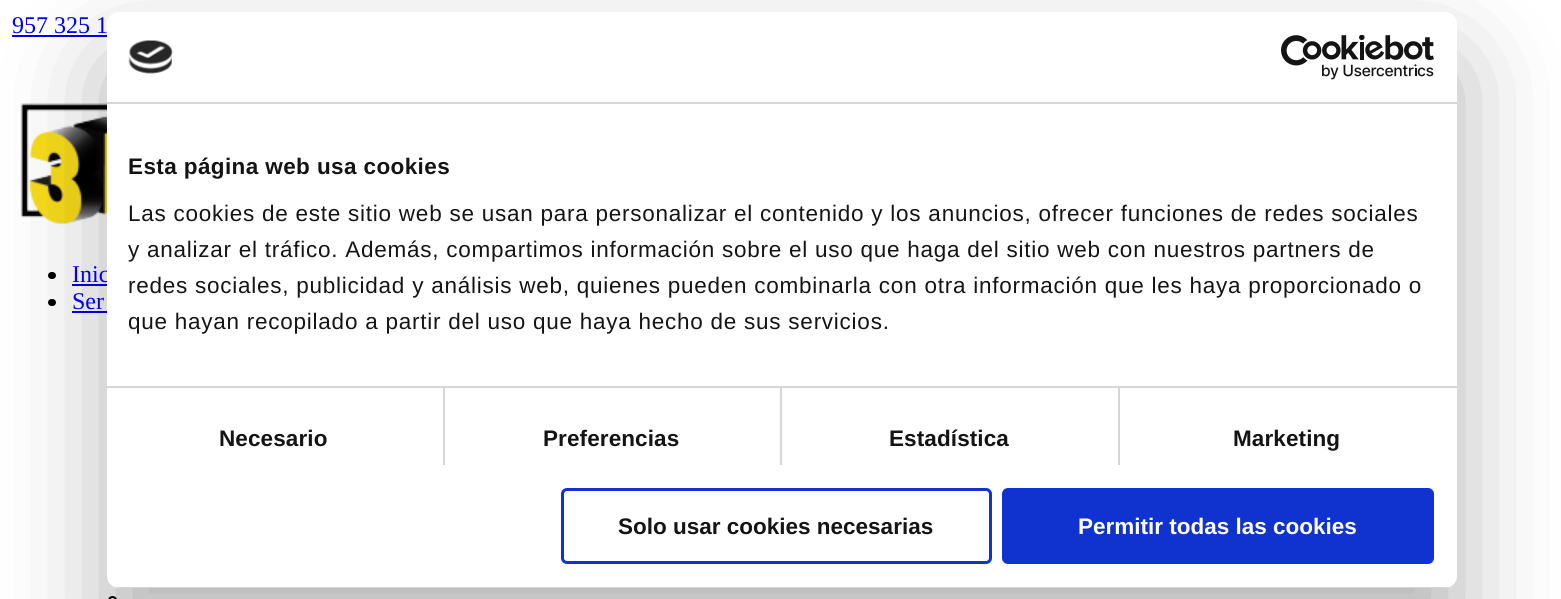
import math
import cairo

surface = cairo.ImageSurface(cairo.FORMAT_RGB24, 1561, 599)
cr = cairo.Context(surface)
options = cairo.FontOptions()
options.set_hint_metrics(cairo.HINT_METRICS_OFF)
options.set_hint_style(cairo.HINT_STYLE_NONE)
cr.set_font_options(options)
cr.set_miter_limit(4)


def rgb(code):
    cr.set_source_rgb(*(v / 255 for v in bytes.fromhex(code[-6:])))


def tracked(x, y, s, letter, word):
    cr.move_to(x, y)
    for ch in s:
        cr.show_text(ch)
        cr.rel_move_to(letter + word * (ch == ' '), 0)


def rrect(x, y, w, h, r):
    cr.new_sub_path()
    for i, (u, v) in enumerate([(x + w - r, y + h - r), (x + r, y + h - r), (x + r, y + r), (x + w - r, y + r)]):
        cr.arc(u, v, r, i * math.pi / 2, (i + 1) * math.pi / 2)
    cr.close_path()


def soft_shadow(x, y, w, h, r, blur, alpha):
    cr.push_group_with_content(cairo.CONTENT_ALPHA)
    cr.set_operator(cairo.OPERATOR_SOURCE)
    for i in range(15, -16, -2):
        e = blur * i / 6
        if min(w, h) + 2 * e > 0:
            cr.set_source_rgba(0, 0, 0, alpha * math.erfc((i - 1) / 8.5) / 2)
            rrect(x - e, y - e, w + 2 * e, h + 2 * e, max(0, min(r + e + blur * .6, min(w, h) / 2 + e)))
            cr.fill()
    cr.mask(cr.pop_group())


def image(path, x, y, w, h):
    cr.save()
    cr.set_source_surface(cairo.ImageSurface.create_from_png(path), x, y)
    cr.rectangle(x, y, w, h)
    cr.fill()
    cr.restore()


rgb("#ffffff")
cr.paint()
rgb("#0000ee")
cr.rectangle(12, 35, 95, 2)
cr.fill()
image("img/1.png", 20, 103, 87, 123)
rgb("#000000")
rrect(48, 272, 8, 7, 3.5)
cr.fill()
rgb("#0000ee")
cr.rectangle(72, 284, 35, 2)
cr.fill()
rgb("#000000")
rrect(48, 299, 8, 7, 3.5)
cr.fill()
rgb("#0000ee")
cr.rectangle(72, 311, 35, 2)
cr.fill()
cr.arc(112.5, 600.5, 3.5, 0, 2 * math.pi)
rgb("#000000")
cr.stroke()
rgb("#000000")
soft_shadow(107, 60, 1350, 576, 12, 51, 0.3)
cr.select_font_face("Liberation Serif")
cr.set_font_size(24)
rgb("#0000ee")
for x, y, s in [
    (12, 33, "957 325 1"),
    (72, 282, "Inic"),
    (72, 309, "Ser"),
]:
    cr.move_to(x, y)
    cr.show_text(s)
rgb("#ffffff")
rrect(107, 12, 1350, 576, 12)
cr.fill()
rgb("#d6d6d6")
cr.rectangle(107, 102, 1350, 2)
cr.fill()
image("img/2.png", 128, 40, 45, 34)
image("img/3.png", 1281, 35, 153, 45)
cr.select_font_face("Liberation Sans", cairo.FONT_SLANT_NORMAL, cairo.FONT_WEIGHT_BOLD)
cr.set_font_size(22.5)
rgb("#141414")
tracked(128, 174, "Esta página web usa cookies", 0.4, 0)
cr.select_font_face("Liberation Sans")
for x, y, s in [
    (128, 221, "Las cookies de este sitio web se usan para personalizar el contenido y los anuncios, ofrecer funciones de redes sociales"),
    (128, 257, "y analizar el tráfico. Además, compartimos información sobre el uso que haga del sitio web con nuestros partners de"),
    (128, 293, "redes sociales, publicidad y análisis web, quienes pueden combinarla con otra información que les haya proporcionado o"),
    (128, 329, "que hayan recopilado a partir del uso que haya hecho de sus servicios."),
]:
    tracked(x, y, s, 0.75, 0)
rgb("#d6d6d6")
cr.rectangle(443, 387, 2, 78)
cr.fill()
cr.select_font_face("Liberation Sans", cairo.FONT_SLANT_NORMAL, cairo.FONT_WEIGHT_BOLD)
rgb("#141414")
tracked(219, 446, "Necesario", 0.1, 0)
rgb("#d6d6d6")
cr.rectangle(780, 387, 2, 78)
cr.fill()
rgb("#141414")
tracked(543, 446, "Preferencias", 0.1, 0)
rgb("#d6d6d6")
cr.rectangle(1118, 387, 2, 78)
cr.fill()
cr.rectangle(107, 386, 1350, 2)
cr.fill()
rgb("#141414")
tracked(889, 446, "Estadística", 0.1, 0)
tracked(1233, 446, "Marketing", 0.1, 0)
cr.save()
rrect(107, 12, 1350, 576, 12)
cr.clip()
rgb("#d6d6d6")
cr.rectangle(107, 587, 1350, 1)
cr.fill()
cr.restore()
rrect(562.5, 489.5, 428, 73, 4.5)
rgb("#1032cf")
cr.set_line_width(3)
cr.stroke()
rgb("#141414")
cr.move_to(618, 534)
cr.show_text("Solo usar cookies necesarias")
rgb("#1032cf")
rrect(1003.5, 489.5, 429, 73, 4.5)
cr.fill_preserve()
cr.stroke()
rgb("#ffffff")
cr.move_to(1078, 534)
cr.show_text("Permitir todas las cookies")
surface.write_to_png("page.png")
